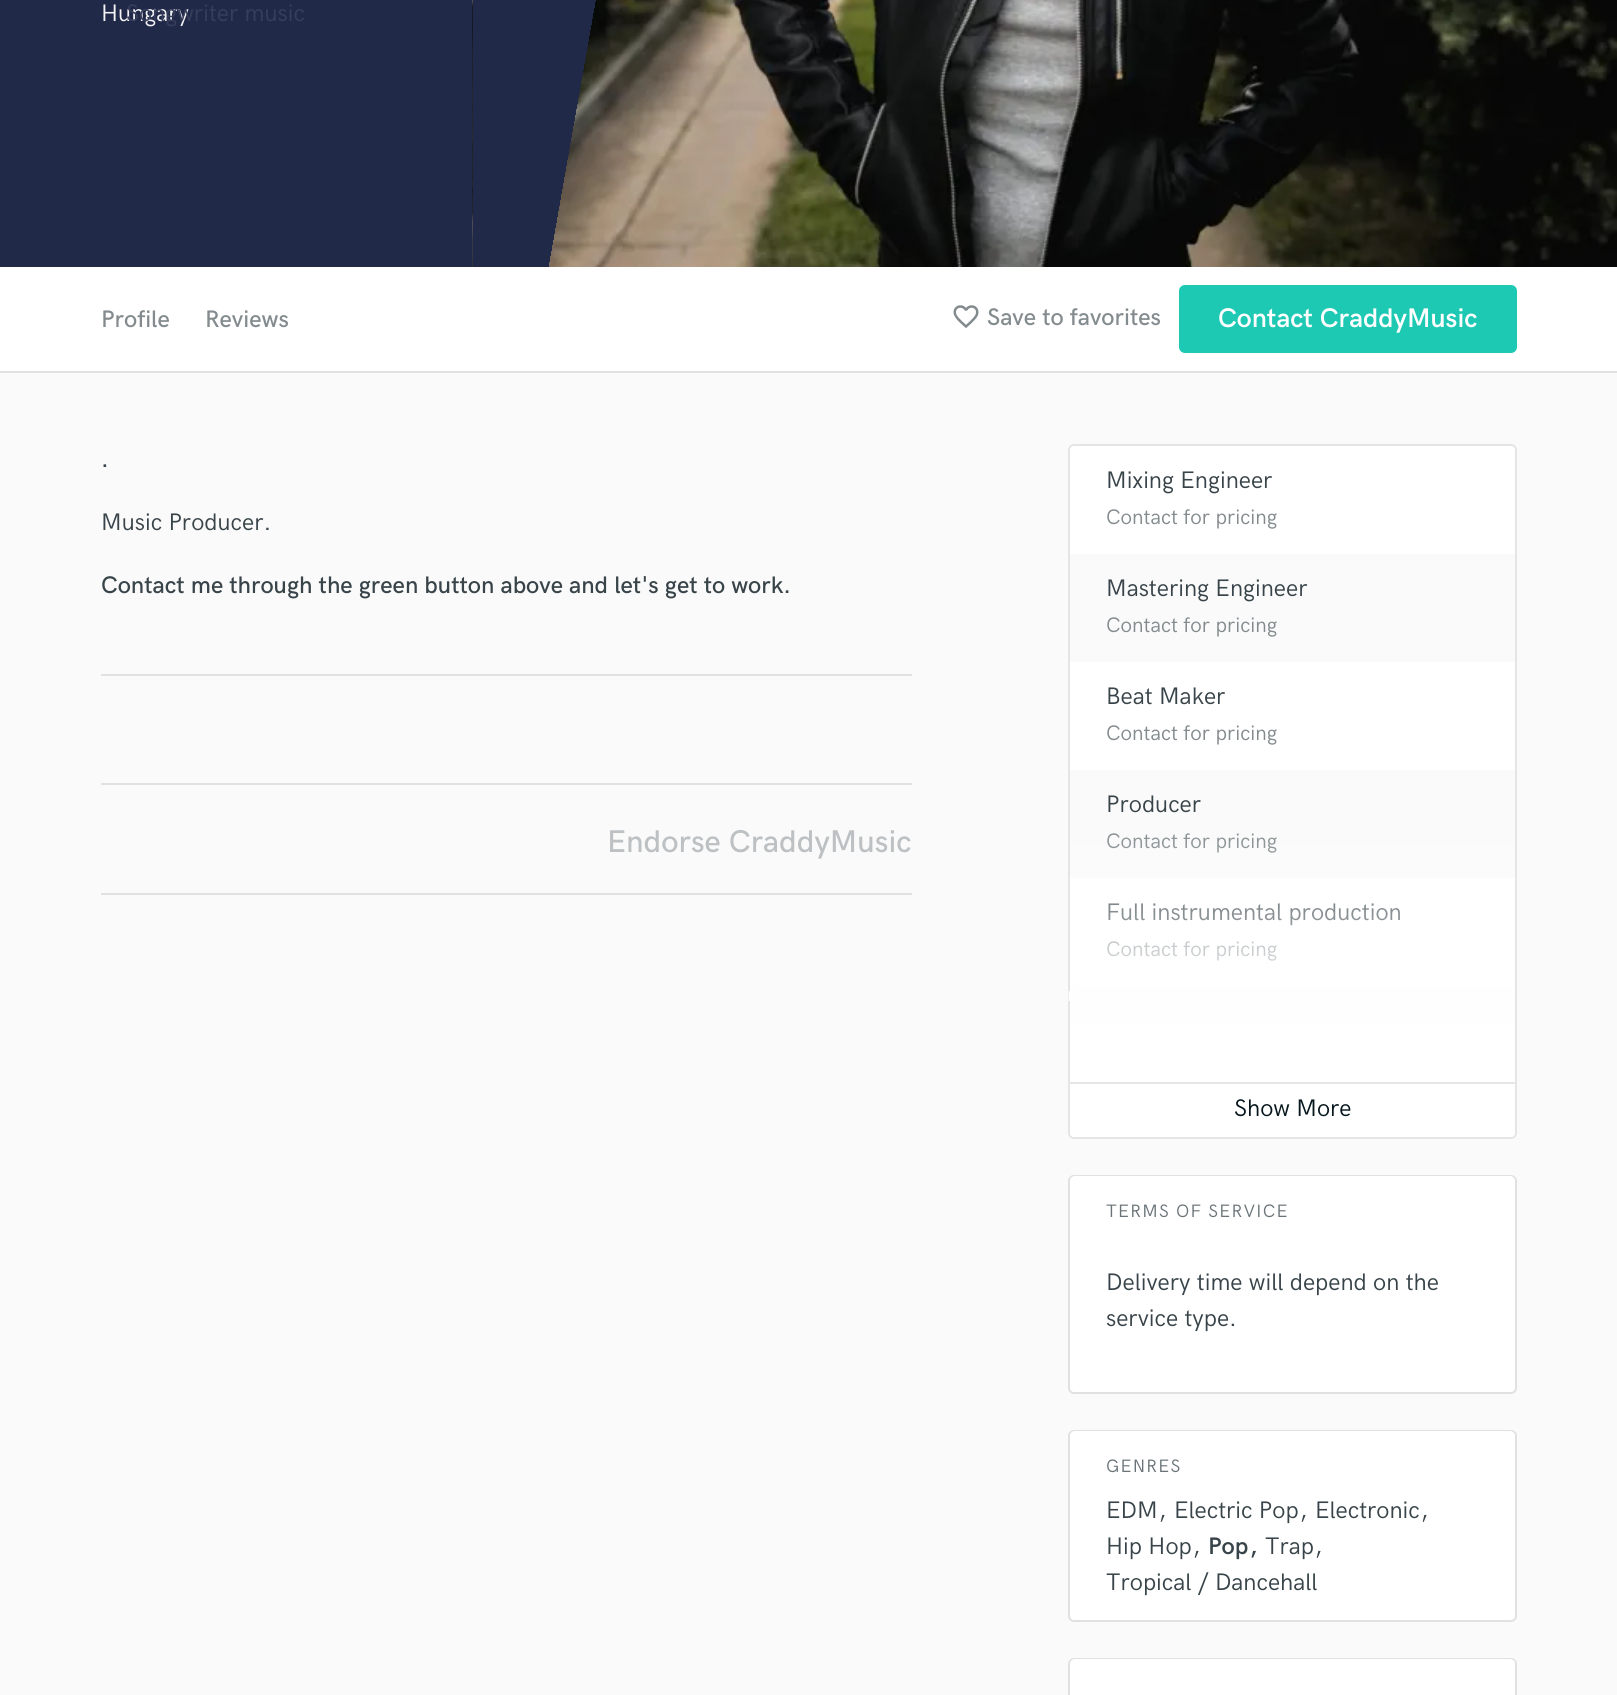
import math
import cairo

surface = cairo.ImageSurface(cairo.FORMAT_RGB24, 1617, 1695)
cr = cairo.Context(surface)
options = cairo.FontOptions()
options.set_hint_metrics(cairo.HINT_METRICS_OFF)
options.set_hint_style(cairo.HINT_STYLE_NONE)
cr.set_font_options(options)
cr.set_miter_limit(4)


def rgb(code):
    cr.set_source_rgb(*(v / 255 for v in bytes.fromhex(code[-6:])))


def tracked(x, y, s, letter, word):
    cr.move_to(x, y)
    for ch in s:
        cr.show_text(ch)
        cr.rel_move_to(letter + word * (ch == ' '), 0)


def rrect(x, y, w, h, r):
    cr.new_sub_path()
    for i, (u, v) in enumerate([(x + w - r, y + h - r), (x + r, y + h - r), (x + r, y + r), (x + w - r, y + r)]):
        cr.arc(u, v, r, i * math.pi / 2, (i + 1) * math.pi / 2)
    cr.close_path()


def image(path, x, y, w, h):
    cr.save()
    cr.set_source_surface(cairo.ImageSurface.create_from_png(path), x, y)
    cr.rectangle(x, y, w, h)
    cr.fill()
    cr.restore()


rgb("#fafafa")
cr.paint()
rgb("#212949")
cr.rectangle(0, 0, 473, 267)
cr.fill()
image("img/1.png", 472, 0, 1145, 267)
rgb("#ffffff")
cr.rectangle(0, 267, 1617, 104)
cr.fill()
image("img/2.png", 953, 305, 26, 23)
rgb("#1ec9b4")
rrect(1180.5, 286.5, 335, 65, 4.5)
cr.fill_preserve()
cr.set_line_width(3)
cr.stroke()
for x, y, w, h, color in [
    (0, 371, 1617, 2, "#e1e1e1"),
    (101, 674, 811, 2, "#e1e1e1"),
    (101, 783, 811, 2, "#e1e1e1"),
    (101, 893, 811, 2, "#e1e1e1"),
]:
    rgb(color)
    cr.rectangle(x, y, w, h)
    cr.fill()
rgb("#ffffff")
rrect(1069, 445, 447, 693, 5)
cr.fill_preserve()
rgb("#e5e5e5")
cr.set_line_width(2)
cr.stroke()
for x, y, w, h, color in [
    (1070, 554, 445, 108, "#fafafa"),
    (1070, 770, 445, 108, "#fafafa"),
    (1070, 986, 445, 60, "#fafafa"),
]:
    rgb(color)
    cr.rectangle(x, y, w, h)
    cr.fill()
rgb("#ffffff")
cr.new_path()
cr.move_to(1070, 1082)
cr.line_to(1515, 1082)
cr.line_to(1515, 1132)
cr.curve_to(1515, 1135, 1513, 1137, 1510, 1137)
cr.line_to(1075, 1137)
cr.curve_to(1072, 1137, 1070, 1135, 1070, 1132)
cr.close_path()
cr.fill()
rgb("#e6e6e6")
cr.rectangle(1070, 1082, 445, 2)
cr.fill()
rrect(1069, 1176, 447, 217, 5)
rgb("#e1e1e1")
cr.stroke()
rgb("#ffffff")
rrect(1070, 1176, 445, 216, 5)
cr.fill()
rrect(1069, 1431, 447, 190, 5)
rgb("#e1e1e1")
cr.stroke()
rgb("#ffffff")
rrect(1070, 1431, 445, 189, 5)
cr.fill()
rrect(1069, 1659, 447, 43, 5)
rgb("#e1e1e1")
cr.stroke()
rgb("#ffffff")
rrect(1070, 1659, 445, 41, 5)
cr.fill()
cr.select_font_face("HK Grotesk")
cr.set_font_size(24)
rgb("#f4f4f6")
cr.move_to(101, 21)
cr.show_text("Hungary")
rgb("#373e5b")
cr.move_to(126, 21)
cr.show_text("Songwriter music")
cr.select_font_face("HK Grotesk Medium")
rgb("#838b8e")
for x, y, s in [
    (101, 327, "Profile"),
    (205, 327, "Reviews"),
    (987, 325, "Save to favorites"),
]:
    cr.move_to(x, y)
    cr.show_text(s)
cr.select_font_face("HK Grotesk SemiBold")
cr.set_font_size(27)
rgb("#ffffff")
cr.move_to(1218, 327)
cr.show_text("Contact CraddyMusic")
cr.select_font_face("HK Grotesk Medium")
cr.set_font_size(24)
rgb("#384449")
cr.move_to(101, 467)
cr.show_text(".")
cr.select_font_face("HK Grotesk")
cr.move_to(101, 530)
cr.show_text("Music Producer.")
cr.select_font_face("HK Grotesk Medium")
cr.move_to(101, 593)
cr.show_text("Contact me through the green button above and let's get to work.")
cr.set_font_size(31.5)
rgb("#bdc1c3")
cr.move_to(607, 852)
cr.show_text("Endorse CraddyMusic")
cr.select_font_face("HK Grotesk")
cr.set_font_size(24)
rgb("#384449")
cr.move_to(1106, 488)
cr.show_text("Mixing Engineer")
cr.set_font_size(21)
rgb("#838b8e")
cr.move_to(1106, 524)
cr.show_text("Contact for pricing")
cr.set_font_size(24)
rgb("#384449")
cr.move_to(1106, 596)
cr.show_text("Mastering Engineer")
cr.set_font_size(21)
rgb("#838b8e")
cr.move_to(1106, 632)
cr.show_text("Contact for pricing")
cr.set_font_size(24)
rgb("#384449")
cr.move_to(1106, 704)
cr.show_text("Beat Maker")
cr.set_font_size(21)
rgb("#838b8e")
cr.move_to(1106, 740)
cr.show_text("Contact for pricing")
cr.set_font_size(24)
rgb("#384449")
cr.move_to(1106, 812)
cr.show_text("Producer")
cr.set_font_size(21)
rgb("#838b8e")
cr.move_to(1106, 848)
cr.show_text("Contact for pricing")
cr.set_font_size(24)
rgb("#384449")
cr.move_to(1106, 920)
cr.show_text("Full instrumental production")
cr.set_font_size(21)
rgb("#838b8e")
cr.move_to(1106, 956)
cr.show_text("Contact for pricing")
gradient = cairo.LinearGradient(1292, 822, 1292, 1047)
gradient.add_color_stop_rgba(0, 1, 1, 1, 0)
gradient.add_color_stop_rgba(1, 1, 1, 1, 1)
cr.set_source(gradient)
cr.rectangle(1070, 833, 445, 213)
cr.fill()
cr.set_font_size(24)
rgb("#07171d")
cr.move_to(1234, 1116)
cr.show_text("Show More")
cr.set_font_size(18)
rgb("#6a7478")
tracked(1106, 1217, "TERMS OF SERVICE", 1.25, 0)
cr.set_font_size(24)
rgb("#384449")
cr.move_to(1106, 1290)
cr.show_text("Delivery time will depend on the")
cr.move_to(1106, 1326)
cr.show_text("service type.")
cr.set_font_size(18)
rgb("#6a7478")
tracked(1106, 1472, "GENRES", 1.25, 0)
cr.set_font_size(24)
rgb("#384449")
for x, y, s in [
    (1106, 1518, "EDM"),
    (1159, 1518, ","),
    (1174, 1518, "Electric Pop"),
    (1300, 1518, ","),
    (1315, 1518, "Electronic"),
    (1421, 1518, ","),
    (1106, 1554, "Hip Hop"),
    (1193, 1554, ","),
]:
    cr.move_to(x, y)
    cr.show_text(s)
cr.select_font_face("HK Grotesk SemiBold")
cr.move_to(1208, 1554)
cr.show_text("Pop")
cr.move_to(1250, 1554)
cr.show_text(",")
cr.select_font_face("HK Grotesk")
for x, y, s in [
    (1265, 1554, "Trap"),
    (1315, 1554, ","),
    (1106, 1590, "Tropical / Dancehall"),
]:
    cr.move_to(x, y)
    cr.show_text(s)
cr.set_font_size(20)
rgb("#ffffff")
cr.move_to(1067, 1001)
cr.show_text("r")
surface.write_to_png("page.png")
